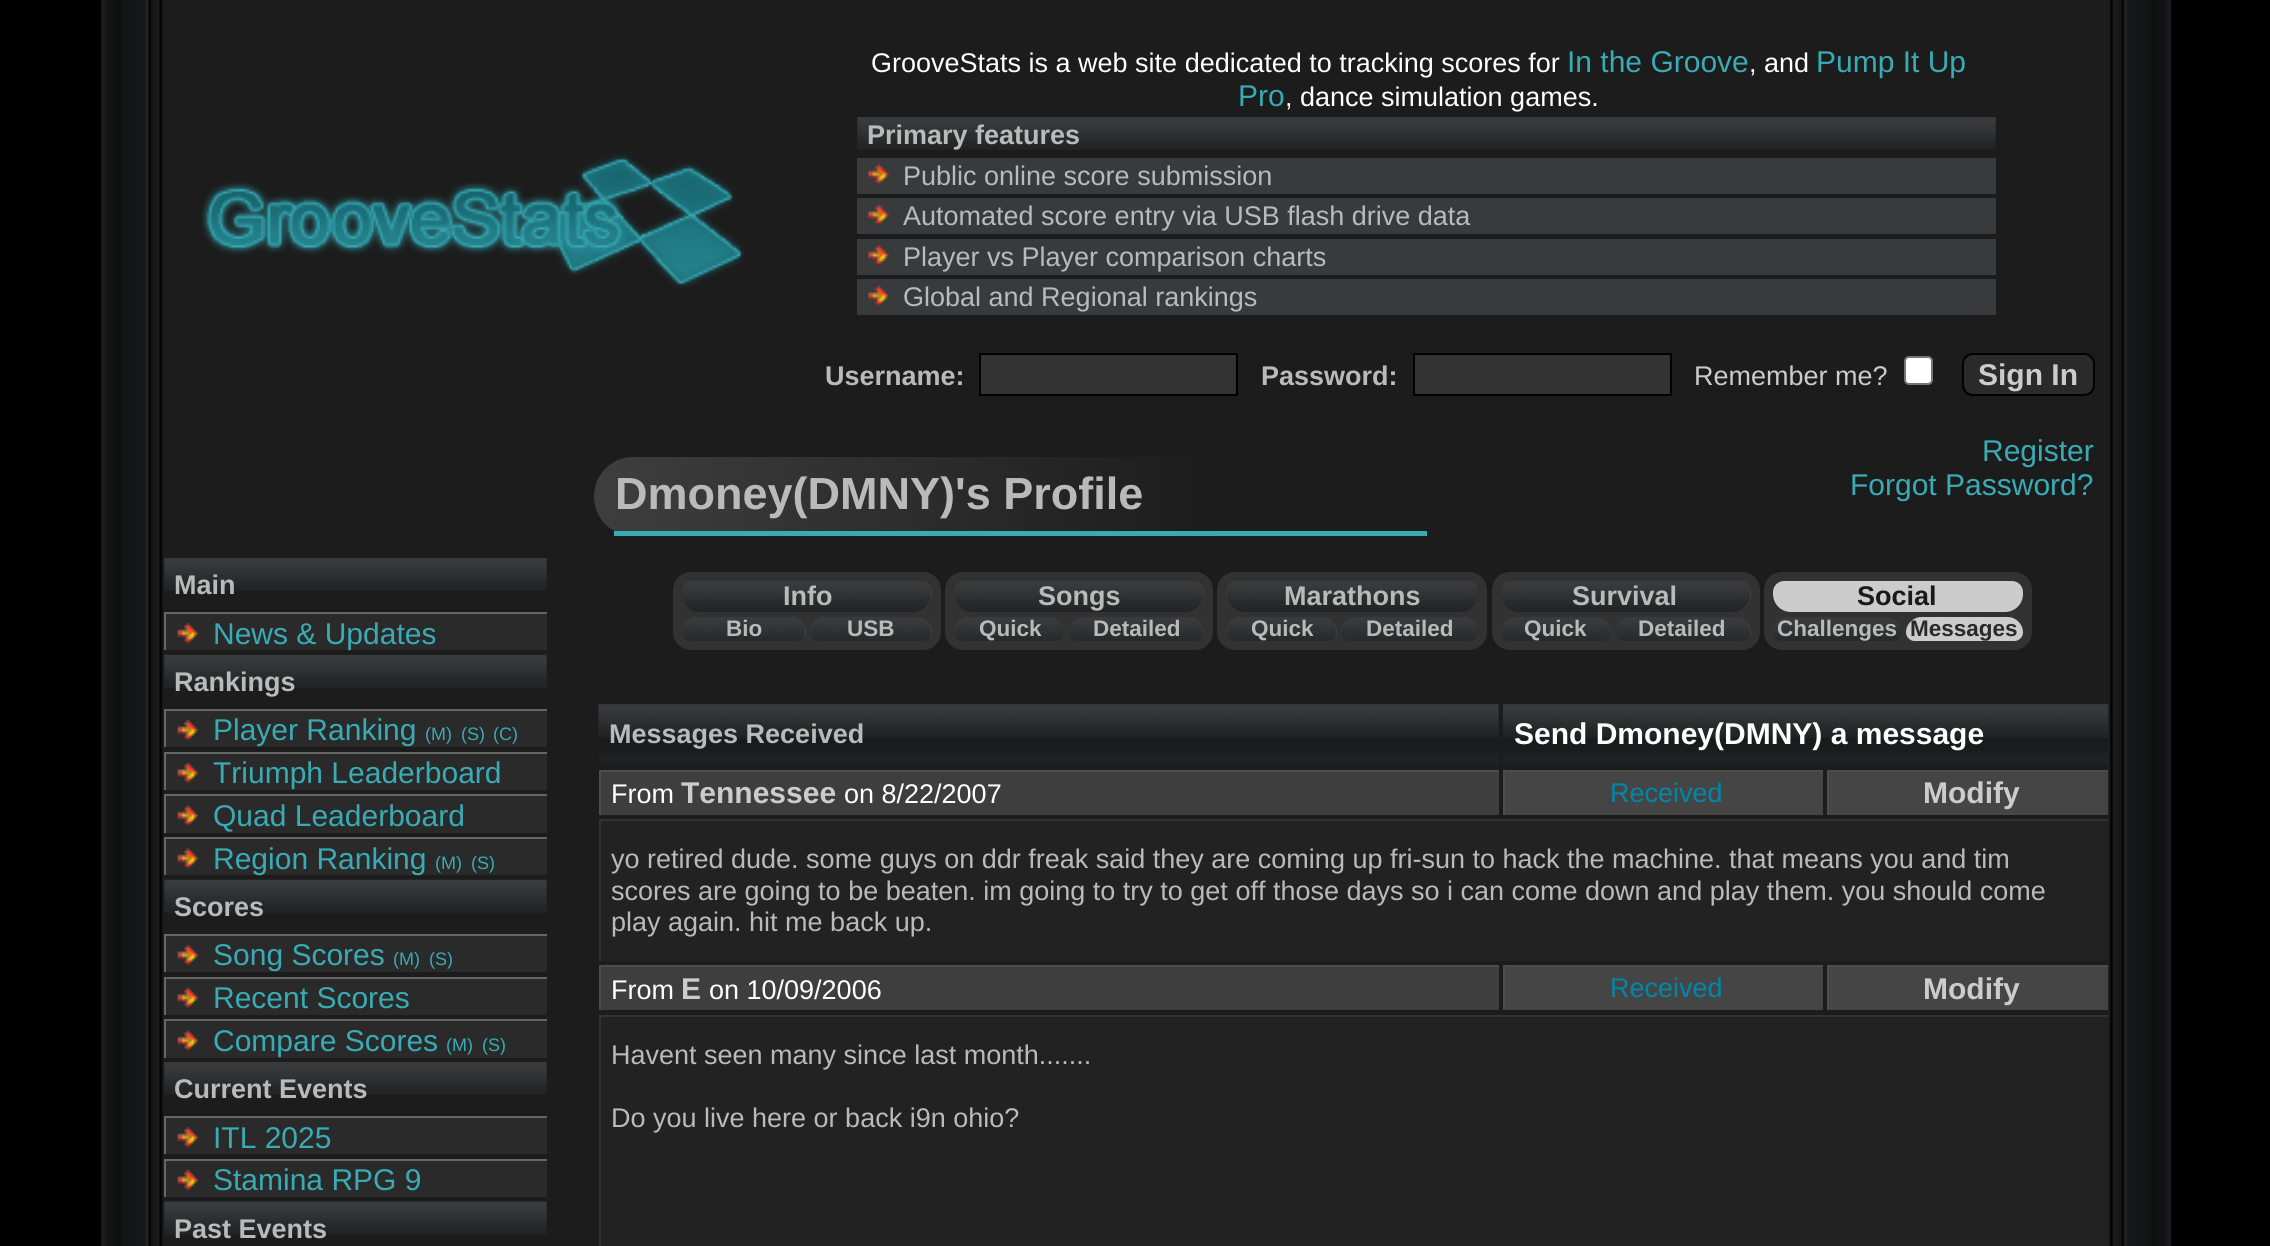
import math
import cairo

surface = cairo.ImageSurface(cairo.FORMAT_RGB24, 2270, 1246)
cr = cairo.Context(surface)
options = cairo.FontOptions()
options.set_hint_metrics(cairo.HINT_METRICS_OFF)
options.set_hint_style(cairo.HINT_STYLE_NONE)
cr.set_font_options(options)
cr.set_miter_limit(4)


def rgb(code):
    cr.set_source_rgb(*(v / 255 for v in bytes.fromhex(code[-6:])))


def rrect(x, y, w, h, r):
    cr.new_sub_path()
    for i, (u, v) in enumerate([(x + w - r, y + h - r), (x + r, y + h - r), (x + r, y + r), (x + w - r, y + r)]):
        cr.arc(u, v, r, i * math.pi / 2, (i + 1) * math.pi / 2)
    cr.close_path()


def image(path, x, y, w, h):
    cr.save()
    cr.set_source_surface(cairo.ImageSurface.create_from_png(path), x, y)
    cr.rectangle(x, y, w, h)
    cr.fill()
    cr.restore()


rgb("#000000")
cr.paint()
image("img/1.png", 101, 0, 2071, 1246)
image("img/2.png", 201, 153, 544, 135)
image("img/3.png", 857, 117, 1139, 33)
rgb("#393a3b")
cr.rectangle(857, 158, 1139, 36)
cr.fill()
image("img/4.png", 868, 164, 21, 21)
cr.rectangle(857, 198, 1139, 36)
cr.fill()
image("img/5.png", 868, 204, 21, 21)
cr.rectangle(857, 239, 1139, 36)
cr.fill()
image("img/4.png", 868, 245, 21, 21)
cr.rectangle(857, 279, 1139, 36)
cr.fill()
image("img/6.png", 868, 285, 21, 21)
rgb("#333333")
cr.rectangle(980, 354, 257, 41)
cr.fill_preserve()
rgb("#000000")
cr.stroke()
rgb("#333333")
cr.rectangle(1414, 354, 257, 41)
cr.fill_preserve()
rgb("#000000")
cr.stroke()
rgb("#ffffff")
rrect(1905, 357, 27, 27, 4)
cr.fill_preserve()
rgb("#767676")
cr.stroke()
rgb("#2a2a2a")
rrect(1963, 354, 131, 41, 10)
cr.fill_preserve()
rgb("#000000")
cr.stroke()
image("img/7.png", 164, 558, 383, 33)
for x, y, w, h, color in [
    (166, 614, 381, 36, "#2a2a2a"),
    (164, 612, 383, 2, "#666666"),
    (164, 612, 2, 38, "#666666"),
]:
    rgb(color)
    cr.rectangle(x, y, w, h)
    cr.fill()
image("img/8.png", 177, 623, 21, 21)
image("img/9.png", 164, 654, 383, 34)
for x, y, w, h, color in [
    (166, 711, 381, 36, "#2a2a2a"),
    (164, 709, 383, 2, "#666666"),
    (164, 709, 2, 38, "#666666"),
]:
    rgb(color)
    cr.rectangle(x, y, w, h)
    cr.fill()
image("img/10.png", 177, 720, 21, 21)
for x, y, w, h, color in [
    (166, 754, 381, 36, "#2a2a2a"),
    (164, 752, 383, 2, "#666666"),
    (164, 752, 2, 38, "#666666"),
]:
    rgb(color)
    cr.rectangle(x, y, w, h)
    cr.fill()
image("img/11.png", 177, 762, 21, 21)
for x, y, w, h, color in [
    (166, 796, 381, 37, "#2a2a2a"),
    (164, 794, 383, 2, "#666666"),
    (164, 794, 2, 39, "#666666"),
]:
    rgb(color)
    cr.rectangle(x, y, w, h)
    cr.fill()
image("img/12.png", 177, 805, 21, 21)
for x, y, w, h, color in [
    (166, 839, 381, 36, "#2a2a2a"),
    (164, 837, 383, 2, "#666666"),
    (164, 837, 2, 38, "#666666"),
]:
    rgb(color)
    cr.rectangle(x, y, w, h)
    cr.fill()
image("img/8.png", 177, 848, 21, 21)
image("img/13.png", 164, 879, 383, 34)
for x, y, w, h, color in [
    (166, 936, 381, 36, "#2a2a2a"),
    (164, 934, 383, 2, "#666666"),
    (164, 934, 2, 38, "#666666"),
]:
    rgb(color)
    cr.rectangle(x, y, w, h)
    cr.fill()
image("img/10.png", 177, 945, 21, 21)
for x, y, w, h, color in [
    (166, 979, 381, 36, "#2a2a2a"),
    (164, 977, 383, 2, "#666666"),
    (164, 977, 2, 38, "#666666"),
]:
    rgb(color)
    cr.rectangle(x, y, w, h)
    cr.fill()
image("img/11.png", 177, 987, 21, 21)
for x, y, w, h, color in [
    (166, 1021, 381, 37, "#2a2a2a"),
    (164, 1019, 383, 2, "#666666"),
    (164, 1019, 2, 39, "#666666"),
]:
    rgb(color)
    cr.rectangle(x, y, w, h)
    cr.fill()
image("img/12.png", 177, 1030, 21, 21)
image("img/14.png", 164, 1062, 383, 33)
for x, y, w, h, color in [
    (166, 1118, 381, 36, "#2a2a2a"),
    (164, 1116, 383, 2, "#666666"),
    (164, 1116, 2, 38, "#666666"),
]:
    rgb(color)
    cr.rectangle(x, y, w, h)
    cr.fill()
image("img/8.png", 177, 1127, 21, 21)
for x, y, w, h, color in [
    (166, 1161, 381, 36, "#2a2a2a"),
    (164, 1159, 383, 2, "#666666"),
    (164, 1159, 2, 38, "#666666"),
]:
    rgb(color)
    cr.rectangle(x, y, w, h)
    cr.fill()
image("img/10.png", 177, 1170, 21, 21)
image("img/15.png", 164, 1201, 383, 34)
gradient = cairo.LinearGradient(594, 494, 1427, 494)
gradient.add_color_stop_rgba(0, 0.243, 0.243, 0.243, 1)
gradient.add_color_stop_rgba(0.75, 0.11, 0.11, 0.11, 1)
cr.set_source(gradient)
cr.new_path()
cr.move_to(633.5, 457)
cr.line_to(1427, 457)
cr.line_to(1427, 536)
cr.line_to(633.5, 536)
cr.curve_to(611.5, 536, 594, 518.5, 594, 496.5)
cr.curve_to(594, 474.5, 611.5, 457, 633.5, 457)
cr.close_path()
cr.fill()
rgb("#38abb5")
cr.rectangle(614, 531, 813, 5)
cr.fill()
rgb("#323232")
rrect(673, 572, 268, 78, 18)
cr.fill()
rgb("#454545")
cr.new_path()
cr.move_to(693, 581)
cr.line_to(921, 581)
cr.curve_to(927, 581, 932, 586, 932, 592)
cr.line_to(932, 594)
cr.curve_to(932, 604, 924, 612, 914, 612)
cr.line_to(700, 612)
cr.curve_to(690, 612, 682, 604, 682, 594)
cr.line_to(682, 592)
cr.curve_to(682, 586, 687, 581, 693, 581)
cr.close_path()
cr.fill()
image("img/16.png", 682, 581, 250, 31)
cr.new_path()
cr.move_to(697.5, 617)
cr.line_to(790.5, 617)
cr.curve_to(799, 617, 806, 624, 806, 632.5)
cr.curve_to(806, 637, 802, 641, 797.5, 641)
cr.line_to(690.5, 641)
cr.curve_to(686, 641, 682, 637, 682, 632.5)
cr.curve_to(682, 624, 689, 617, 697.5, 617)
cr.close_path()
cr.fill()
image("img/17.png", 682, 617, 124, 24)
cr.new_path()
cr.move_to(825.5, 617)
cr.line_to(916.5, 617)
cr.curve_to(925, 617, 932, 624, 932, 632.5)
cr.curve_to(932, 637, 928, 641, 923.5, 641)
cr.line_to(818.5, 641)
cr.curve_to(814, 641, 810, 637, 810, 632.5)
cr.curve_to(810, 624, 817, 617, 825.5, 617)
cr.close_path()
cr.fill()
image("img/18.png", 810, 617, 122, 24)
rgb("#323232")
rrect(945, 572, 268, 78, 18)
cr.fill()
rgb("#454545")
cr.new_path()
cr.move_to(965, 581)
cr.line_to(1193, 581)
cr.curve_to(1199, 581, 1204, 586, 1204, 592)
cr.line_to(1204, 594)
cr.curve_to(1204, 604, 1196, 612, 1186, 612)
cr.line_to(972, 612)
cr.curve_to(962, 612, 954, 604, 954, 594)
cr.line_to(954, 592)
cr.curve_to(954, 586, 959, 581, 965, 581)
cr.close_path()
cr.fill()
image("img/19.png", 954, 581, 250, 31)
cr.new_path()
cr.move_to(969.5, 617)
cr.line_to(1048.5, 617)
cr.curve_to(1057, 617, 1064, 624, 1064, 632.5)
cr.curve_to(1064, 637, 1060, 641, 1055.5, 641)
cr.line_to(962.5, 641)
cr.curve_to(958, 641, 954, 637, 954, 632.5)
cr.curve_to(954, 624, 961, 617, 969.5, 617)
cr.close_path()
cr.fill()
image("img/20.png", 954, 617, 110, 24)
cr.new_path()
cr.move_to(1084.5, 617)
cr.line_to(1188.5, 617)
cr.curve_to(1197, 617, 1204, 624, 1204, 632.5)
cr.curve_to(1204, 637, 1200, 641, 1195.5, 641)
cr.line_to(1077.5, 641)
cr.curve_to(1073, 641, 1069, 637, 1069, 632.5)
cr.curve_to(1069, 624, 1076, 617, 1084.5, 617)
cr.close_path()
cr.fill()
image("img/21.png", 1069, 617, 135, 24)
rgb("#323232")
rrect(1217, 572, 270, 78, 18)
cr.fill()
rgb("#454545")
cr.new_path()
cr.move_to(1237, 581)
cr.line_to(1467, 581)
cr.curve_to(1473, 581, 1478, 586, 1478, 592)
cr.line_to(1478, 594)
cr.curve_to(1478, 604, 1470, 612, 1460, 612)
cr.line_to(1244, 612)
cr.curve_to(1234, 612, 1226, 604, 1226, 594)
cr.line_to(1226, 592)
cr.curve_to(1226, 586, 1231, 581, 1237, 581)
cr.close_path()
cr.fill()
image("img/22.png", 1226, 581, 252, 31)
cr.new_path()
cr.move_to(1241.5, 617)
cr.line_to(1321.5, 617)
cr.curve_to(1330, 617, 1337, 624, 1337, 632.5)
cr.curve_to(1337, 637, 1333, 641, 1328.5, 641)
cr.line_to(1234.5, 641)
cr.curve_to(1230, 641, 1226, 637, 1226, 632.5)
cr.curve_to(1226, 624, 1233, 617, 1241.5, 617)
cr.close_path()
cr.fill()
image("img/23.png", 1226, 617, 111, 24)
cr.new_path()
cr.move_to(1356.5, 617)
cr.line_to(1462.5, 617)
cr.curve_to(1471, 617, 1478, 624, 1478, 632.5)
cr.curve_to(1478, 637, 1474, 641, 1469.5, 641)
cr.line_to(1349.5, 641)
cr.curve_to(1345, 641, 1341, 637, 1341, 632.5)
cr.curve_to(1341, 624, 1348, 617, 1356.5, 617)
cr.close_path()
cr.fill()
image("img/24.png", 1341, 617, 137, 24)
rgb("#323232")
rrect(1492, 572, 268, 78, 18)
cr.fill()
rgb("#454545")
cr.new_path()
cr.move_to(1512, 581)
cr.line_to(1740, 581)
cr.curve_to(1746, 581, 1751, 586, 1751, 592)
cr.line_to(1751, 594)
cr.curve_to(1751, 604, 1743, 612, 1733, 612)
cr.line_to(1519, 612)
cr.curve_to(1509, 612, 1501, 604, 1501, 594)
cr.line_to(1501, 592)
cr.curve_to(1501, 586, 1506, 581, 1512, 581)
cr.close_path()
cr.fill()
image("img/25.png", 1501, 581, 250, 31)
cr.new_path()
cr.move_to(1516.5, 617)
cr.line_to(1595.5, 617)
cr.curve_to(1604, 617, 1611, 624, 1611, 632.5)
cr.curve_to(1611, 637, 1607, 641, 1602.5, 641)
cr.line_to(1509.5, 641)
cr.curve_to(1505, 641, 1501, 637, 1501, 632.5)
cr.curve_to(1501, 624, 1508, 617, 1516.5, 617)
cr.close_path()
cr.fill()
image("img/26.png", 1501, 617, 110, 24)
cr.new_path()
cr.move_to(1631.5, 617)
cr.line_to(1735.5, 617)
cr.curve_to(1744, 617, 1751, 624, 1751, 632.5)
cr.curve_to(1751, 637, 1747, 641, 1742.5, 641)
cr.line_to(1624.5, 641)
cr.curve_to(1620, 641, 1616, 637, 1616, 632.5)
cr.curve_to(1616, 624, 1623, 617, 1631.5, 617)
cr.close_path()
cr.fill()
image("img/27.png", 1616, 617, 135, 24)
rgb("#323232")
rrect(1764, 572, 268, 78, 18)
cr.fill()
rgb("#cccccc")
cr.new_path()
cr.move_to(1784, 581)
cr.line_to(2012, 581)
cr.curve_to(2018, 581, 2023, 586, 2023, 592)
cr.line_to(2023, 594)
cr.curve_to(2023, 604, 2015, 612, 2005, 612)
cr.line_to(1791, 612)
cr.curve_to(1781, 612, 1773, 604, 1773, 594)
cr.line_to(1773, 592)
cr.curve_to(1773, 586, 1778, 581, 1784, 581)
cr.close_path()
cr.fill()
rgb("#454545")
cr.new_path()
cr.move_to(1788.5, 617)
cr.line_to(1885.5, 617)
cr.curve_to(1894, 617, 1901, 624, 1901, 632.5)
cr.curve_to(1901, 637, 1897, 641, 1892.5, 641)
cr.line_to(1781.5, 641)
cr.curve_to(1777, 641, 1773, 637, 1773, 632.5)
cr.curve_to(1773, 624, 1780, 617, 1788.5, 617)
cr.close_path()
cr.fill()
image("img/28.png", 1773, 617, 128, 24)
rgb("#cccccc")
cr.new_path()
cr.move_to(1921.5, 617)
cr.line_to(2007.5, 617)
cr.curve_to(2016, 617, 2023, 624, 2023, 632.5)
cr.curve_to(2023, 637, 2019, 641, 2014.5, 641)
cr.line_to(1914.5, 641)
cr.curve_to(1910, 641, 1906, 637, 1906, 632.5)
cr.curve_to(1906, 624, 1913, 617, 1921.5, 617)
cr.close_path()
cr.fill()
rgb("#1f2123")
cr.rectangle(599, 704, 900, 61)
cr.fill()
image("img/29.png", 598, 704, 901, 50)
cr.rectangle(1503, 704, 605, 61)
cr.fill()
image("img/30.png", 1503, 704, 606, 50)
for x, y, w, h, color in [
    (601, 772, 898, 43, "#3e3e3e"),
    (599, 770, 900, 2, "#4d4d4d"),
    (599, 770, 2, 45, "#4d4d4d"),
    (1505, 772, 318, 43, "#454545"),
    (1503, 770, 320, 2, "#4d4d4d"),
    (1503, 770, 2, 45, "#4d4d4d"),
    (1829, 772, 279, 43, "#454545"),
    (1827, 770, 281, 2, "#4d4d4d"),
    (1827, 770, 2, 45, "#4d4d4d"),
    (601, 821, 1507, 140, "#222222"),
    (599, 819, 1509, 2, "#323232"),
    (599, 819, 2, 142, "#323232"),
    (601, 967, 898, 43, "#3e3e3e"),
    (599, 965, 900, 2, "#4d4d4d"),
    (599, 965, 2, 45, "#4d4d4d"),
    (1505, 967, 318, 43, "#454545"),
    (1503, 965, 320, 2, "#4d4d4d"),
    (1503, 965, 2, 45, "#4d4d4d"),
    (1829, 967, 279, 43, "#454545"),
    (1827, 965, 281, 2, "#4d4d4d"),
    (1827, 965, 2, 45, "#4d4d4d"),
    (601, 1017, 1507, 229, "#222222"),
    (599, 1015, 1509, 2, "#323232"),
    (599, 1015, 2, 231, "#323232"),
]:
    rgb(color)
    cr.rectangle(x, y, w, h)
    cr.fill()
cr.select_font_face("Liberation Sans")
cr.set_font_size(27)
rgb("#ffffff")
cr.move_to(871, 72)
cr.show_text("GrooveStats is a web site dedicated to tracking scores for")
cr.set_font_size(30)
rgb("#38abb5")
cr.move_to(1567, 72)
cr.show_text("In the Groove")
cr.set_font_size(27)
rgb("#ffffff")
cr.move_to(1749, 72)
cr.show_text(", and")
cr.set_font_size(30)
rgb("#38abb5")
cr.move_to(1816, 72)
cr.show_text("Pump It Up")
cr.move_to(1238, 106)
cr.show_text("Pro")
cr.set_font_size(27)
rgb("#ffffff")
cr.move_to(1285, 106)
cr.show_text(", dance simulation games.")
cr.select_font_face("Liberation Sans", cairo.FONT_SLANT_NORMAL, cairo.FONT_WEIGHT_BOLD)
rgb("#bababa")
cr.move_to(867, 144)
cr.show_text("Primary features")
cr.select_font_face("Liberation Sans")
for x, y, s in [
    (903, 185, "Public online score submission"),
    (903, 225, "Automated score entry via USB flash drive data"),
    (903, 266, "Player vs Player comparison charts"),
    (903, 306, "Global and Regional rankings"),
]:
    cr.move_to(x, y)
    cr.show_text(s)
cr.select_font_face("Liberation Sans", cairo.FONT_SLANT_NORMAL, cairo.FONT_WEIGHT_BOLD)
cr.move_to(825, 385)
cr.show_text("Username:")
cr.move_to(1261, 385)
cr.show_text("Password:")
cr.select_font_face("Liberation Sans")
rgb("#cccccc")
cr.move_to(1694, 385)
cr.show_text("Remember me?")
cr.select_font_face("Liberation Sans", cairo.FONT_SLANT_NORMAL, cairo.FONT_WEIGHT_BOLD)
cr.set_font_size(30)
cr.move_to(1978, 385)
cr.show_text("Sign In")
cr.select_font_face("Liberation Sans")
rgb("#38abb5")
cr.move_to(1982, 461)
cr.show_text("Register")
cr.move_to(1850, 495)
cr.show_text("Forgot Password?")
cr.select_font_face("Liberation Sans", cairo.FONT_SLANT_NORMAL, cairo.FONT_WEIGHT_BOLD)
cr.set_font_size(27)
rgb("#bababa")
cr.move_to(174, 594)
cr.show_text("Main")
cr.select_font_face("Liberation Sans")
cr.set_font_size(30)
rgb("#38abb5")
cr.move_to(213, 644)
cr.show_text("News & Updates")
cr.select_font_face("Liberation Sans", cairo.FONT_SLANT_NORMAL, cairo.FONT_WEIGHT_BOLD)
cr.set_font_size(27)
rgb("#bababa")
cr.move_to(174, 691)
cr.show_text("Rankings")
cr.select_font_face("Liberation Sans")
cr.set_font_size(30)
rgb("#38abb5")
cr.move_to(213, 740)
cr.show_text("Player Ranking")
cr.set_font_size(18)
for x, y, s in [
    (425, 740, "(M)"),
    (461, 740, "(S)"),
    (493, 740, "(C)"),
]:
    cr.move_to(x, y)
    cr.show_text(s)
cr.set_font_size(30)
for x, y, s in [
    (213, 783, "Triumph Leaderboard"),
    (213, 826, "Quad Leaderboard"),
    (213, 869, "Region Ranking"),
]:
    cr.move_to(x, y)
    cr.show_text(s)
cr.set_font_size(18)
cr.move_to(435, 869)
cr.show_text("(M)")
cr.move_to(471, 869)
cr.show_text("(S)")
cr.select_font_face("Liberation Sans", cairo.FONT_SLANT_NORMAL, cairo.FONT_WEIGHT_BOLD)
cr.set_font_size(27)
rgb("#bababa")
cr.move_to(174, 916)
cr.show_text("Scores")
cr.select_font_face("Liberation Sans")
cr.set_font_size(30)
rgb("#38abb5")
cr.move_to(213, 965)
cr.show_text("Song Scores")
cr.set_font_size(18)
cr.move_to(393, 965)
cr.show_text("(M)")
cr.move_to(429, 965)
cr.show_text("(S)")
cr.set_font_size(30)
cr.move_to(213, 1008)
cr.show_text("Recent Scores")
cr.move_to(213, 1051)
cr.show_text("Compare Scores")
cr.set_font_size(18)
cr.move_to(446, 1051)
cr.show_text("(M)")
cr.move_to(482, 1051)
cr.show_text("(S)")
cr.select_font_face("Liberation Sans", cairo.FONT_SLANT_NORMAL, cairo.FONT_WEIGHT_BOLD)
cr.set_font_size(27)
rgb("#bababa")
cr.move_to(174, 1098)
cr.show_text("Current Events")
cr.select_font_face("Liberation Sans")
cr.set_font_size(30)
rgb("#38abb5")
cr.move_to(213, 1148)
cr.show_text("ITL 2025")
cr.move_to(213, 1190)
cr.show_text("Stamina RPG 9")
cr.select_font_face("Liberation Sans", cairo.FONT_SLANT_NORMAL, cairo.FONT_WEIGHT_BOLD)
cr.set_font_size(27)
rgb("#bababa")
cr.move_to(174, 1238)
cr.show_text("Past Events")
cr.set_font_size(45)
cr.move_to(615, 509)
cr.show_text("Dmoney(DMNY)'s Profile")
cr.set_font_size(27)
cr.move_to(783, 605)
cr.show_text("Info")
cr.set_font_size(22.5)
cr.move_to(726, 636)
cr.show_text("Bio")
cr.move_to(847, 636)
cr.show_text("USB")
cr.set_font_size(27)
cr.move_to(1038, 605)
cr.show_text("Songs")
cr.set_font_size(22.5)
cr.move_to(979, 636)
cr.show_text("Quick")
cr.move_to(1093, 636)
cr.show_text("Detailed")
cr.set_font_size(27)
cr.move_to(1284, 605)
cr.show_text("Marathons")
cr.set_font_size(22.5)
cr.move_to(1251, 636)
cr.show_text("Quick")
cr.move_to(1366, 636)
cr.show_text("Detailed")
cr.set_font_size(27)
cr.move_to(1572, 605)
cr.show_text("Survival")
cr.set_font_size(22.5)
cr.move_to(1524, 636)
cr.show_text("Quick")
cr.move_to(1638, 636)
cr.show_text("Detailed")
cr.set_font_size(27)
rgb("#1a1a1a")
cr.move_to(1857, 605)
cr.show_text("Social")
cr.set_font_size(22.5)
rgb("#bababa")
cr.move_to(1777, 636)
cr.show_text("Challenges")
rgb("#2a2a2a")
cr.move_to(1910, 636)
cr.show_text("Messages")
cr.set_font_size(27)
rgb("#bababa")
cr.move_to(609, 743)
cr.show_text("Messages Received")
cr.set_font_size(30)
rgb("#ffffff")
cr.move_to(1514, 744)
cr.show_text("Send Dmoney(DMNY) a message")
cr.select_font_face("Liberation Sans")
cr.set_font_size(27)
cr.move_to(611, 803)
cr.show_text("From")
cr.select_font_face("Liberation Sans", cairo.FONT_SLANT_NORMAL, cairo.FONT_WEIGHT_BOLD)
cr.set_font_size(30)
rgb("#cccccc")
cr.move_to(681, 803)
cr.show_text("Tennessee")
cr.select_font_face("Liberation Sans")
cr.set_font_size(27)
rgb("#ffffff")
cr.move_to(844, 803)
cr.show_text("on 8/22/2007")
rgb("#0088aa")
cr.move_to(1610, 802)
cr.show_text("Received")
cr.select_font_face("Liberation Sans", cairo.FONT_SLANT_NORMAL, cairo.FONT_WEIGHT_BOLD)
cr.set_font_size(30)
rgb("#cccccc")
cr.move_to(1923, 803)
cr.show_text("Modify")
cr.select_font_face("Liberation Sans")
cr.set_font_size(27)
rgb("#bababa")
for x, y, s in [
    (611, 868, "yo retired dude. some guys on ddr freak said they are coming up fri-sun to hack the machine. that means you and tim"),
    (611, 900, "scores are going to be beaten. im going to try to get off those days so i can come down and play them. you should come"),
    (611, 931, "play again. hit me back up."),
]:
    cr.move_to(x, y)
    cr.show_text(s)
rgb("#ffffff")
cr.move_to(611, 999)
cr.show_text("From")
cr.select_font_face("Liberation Sans", cairo.FONT_SLANT_NORMAL, cairo.FONT_WEIGHT_BOLD)
cr.set_font_size(30)
rgb("#cccccc")
cr.move_to(681, 999)
cr.show_text("E")
cr.select_font_face("Liberation Sans")
cr.set_font_size(27)
rgb("#ffffff")
cr.move_to(709, 999)
cr.show_text("on 10/09/2006")
rgb("#0088aa")
cr.move_to(1610, 997)
cr.show_text("Received")
cr.select_font_face("Liberation Sans", cairo.FONT_SLANT_NORMAL, cairo.FONT_WEIGHT_BOLD)
cr.set_font_size(30)
rgb("#cccccc")
cr.move_to(1923, 999)
cr.show_text("Modify")
cr.select_font_face("Liberation Sans")
cr.set_font_size(27)
rgb("#bababa")
cr.move_to(611, 1064)
cr.show_text("Havent seen many since last month.......")
cr.move_to(611, 1127)
cr.show_text("Do you live here or back i9n ohio?")
surface.write_to_png("page.png")
